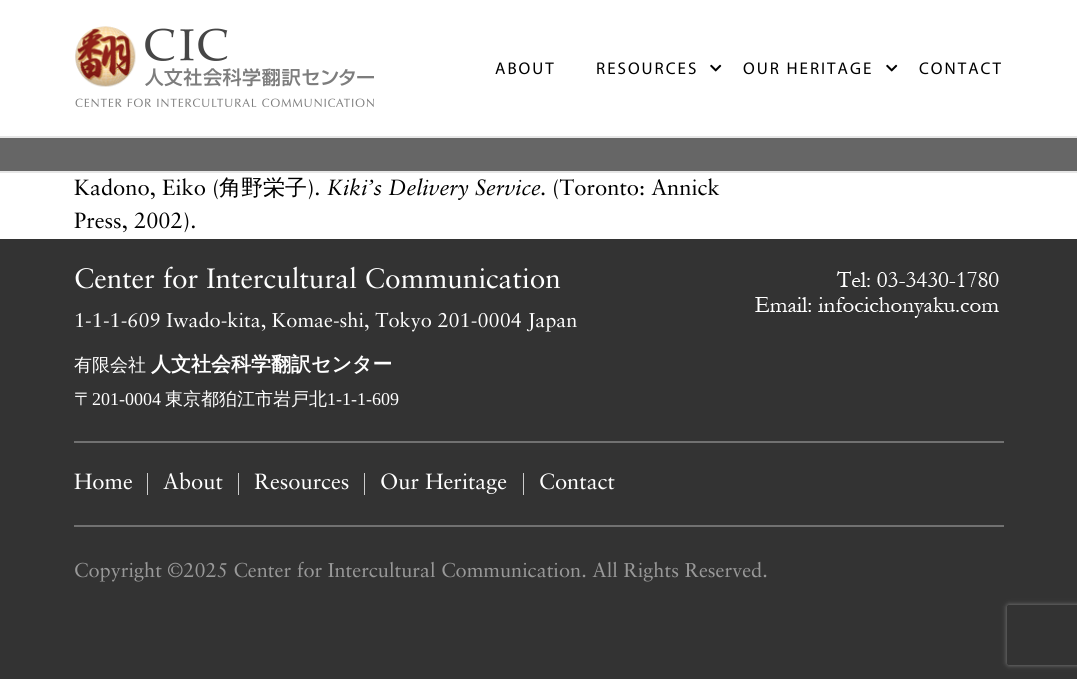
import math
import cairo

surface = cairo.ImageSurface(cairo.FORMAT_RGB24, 1077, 679)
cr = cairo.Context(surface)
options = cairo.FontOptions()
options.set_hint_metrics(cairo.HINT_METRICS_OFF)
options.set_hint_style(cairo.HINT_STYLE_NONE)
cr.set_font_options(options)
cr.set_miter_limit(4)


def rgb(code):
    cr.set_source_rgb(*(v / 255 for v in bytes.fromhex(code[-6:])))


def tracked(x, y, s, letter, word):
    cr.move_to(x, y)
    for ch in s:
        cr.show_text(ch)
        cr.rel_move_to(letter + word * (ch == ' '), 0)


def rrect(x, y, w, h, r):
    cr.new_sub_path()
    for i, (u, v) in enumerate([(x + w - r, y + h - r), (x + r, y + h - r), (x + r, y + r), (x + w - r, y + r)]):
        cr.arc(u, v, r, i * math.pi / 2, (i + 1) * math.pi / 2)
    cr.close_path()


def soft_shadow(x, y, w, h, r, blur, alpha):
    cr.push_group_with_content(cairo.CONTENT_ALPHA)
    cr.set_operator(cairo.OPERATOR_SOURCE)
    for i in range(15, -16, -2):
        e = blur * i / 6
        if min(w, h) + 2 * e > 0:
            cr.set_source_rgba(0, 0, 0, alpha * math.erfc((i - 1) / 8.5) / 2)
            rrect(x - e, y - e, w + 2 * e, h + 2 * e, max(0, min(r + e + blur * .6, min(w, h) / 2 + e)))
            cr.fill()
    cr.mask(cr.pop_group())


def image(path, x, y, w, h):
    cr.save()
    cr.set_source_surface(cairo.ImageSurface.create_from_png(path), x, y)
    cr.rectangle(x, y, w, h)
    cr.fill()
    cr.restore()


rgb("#333333")
cr.paint()
rgb("#ffffff")
cr.rectangle(0, 0, 1077, 136)
cr.fill()
image("img/1.png", 75, 26, 299, 81)
image("img/2.png", 710, 64, 12, 8)
image("img/2.png", 886, 64, 12, 8)
for x, y, w, h, color in [
    (0, 138, 1077, 33, "#666666"),
    (0, 136, 1077, 2, "#e6e6e6"),
    (0, 171, 1077, 2, "#e6e6e6"),
    (0, 173, 1077, 66, "#ffffff"),
]:
    rgb(color)
    cr.rectangle(x, y, w, h)
    cr.fill()
image("img/3.png", 755, 271, 244, 47)
for x, y, w, h, color in [
    (74, 441, 930, 2, "#717171"),
    (74, 525, 930, 2, "#717171"),
    (147, 473, 1, 22, "#cccccc"),
    (238, 473, 1, 22, "#cccccc"),
    (364, 473, 1, 22, "#cccccc"),
    (523, 473, 1, 22, "#cccccc"),
]:
    rgb(color)
    cr.rectangle(x, y, w, h)
    cr.fill()
cr.save()
cr.set_fill_rule(cairo.FILL_RULE_EVEN_ODD)
cr.new_path()
cr.move_to(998, 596)
cr.line_to(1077, 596)
cr.line_to(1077, 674)
cr.line_to(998, 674)
cr.close_path()
cr.move_to(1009, 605)
cr.line_to(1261, 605)
cr.curve_to(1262, 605, 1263, 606, 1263, 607)
cr.line_to(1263, 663)
cr.curve_to(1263, 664, 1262, 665, 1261, 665)
cr.line_to(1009, 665)
cr.curve_to(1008, 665, 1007, 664, 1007, 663)
cr.line_to(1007, 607)
cr.curve_to(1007, 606, 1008, 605, 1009, 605)
cr.close_path()
cr.clip()
rgb("#808080")
soft_shadow(1007, 605, 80, 60, 2, 2.5, 1)
cr.restore()
cr.select_font_face("Myriad")
cr.set_font_size(17)
rgb("#000000")
for x, y, s in [
    (495, 74, "ABOUT"),
    (596, 74, "RESOURCES"),
    (743, 74, "OUR HERITAGE"),
    (919, 74, "CONTACT"),
]:
    tracked(x, y, s, 2, 0)
cr.select_font_face("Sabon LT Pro")
cr.set_font_size(22)
cr.move_to(74, 195)
cr.show_text("Kadono, Eiko (")
cr.select_font_face("WenQuanYi Zen Hei Medium")
cr.move_to(219, 195)
cr.show_text("角野栄子")
cr.select_font_face("Sabon LT Pro")
cr.move_to(307, 195)
cr.show_text(").")
cr.select_font_face("Sabon LT Pro", cairo.FONT_SLANT_ITALIC)
cr.move_to(327, 195)
cr.show_text("Kiki’s Delivery Service")
cr.select_font_face("Sabon LT Pro")
cr.move_to(540, 195)
cr.show_text(". (Toronto: Annick")
cr.move_to(74, 228)
cr.show_text("Press, 2002).")
cr.set_font_size(28)
rgb("#ffffff")
cr.move_to(74, 288)
cr.show_text("Center for Intercultural Communication")
cr.set_font_size(20)
cr.move_to(74, 327)
cr.show_text("1-1-1-609 Iwado-kita, Komae-shi, Tokyo 201-0004 Japan")
cr.select_font_face("WenQuanYi Zen Hei Medium")
cr.set_font_size(18)
cr.move_to(74, 371)
cr.show_text("有限会社")
cr.select_font_face("WenQuanYi Zen Hei", cairo.FONT_SLANT_NORMAL, cairo.FONT_WEIGHT_BOLD)
cr.set_font_size(20)
cr.move_to(151, 371)
cr.show_text("人文社会科学翻訳センター")
cr.select_font_face("WenQuanYi Zen Hei Medium")
cr.set_font_size(18)
cr.move_to(74, 405)
cr.show_text("〒")
cr.select_font_face("Liberation Serif")
cr.move_to(92, 405)
cr.show_text("201-0004")
cr.select_font_face("WenQuanYi Zen Hei Medium")
cr.move_to(165, 405)
cr.show_text("東京都狛江市岩戸北")
cr.select_font_face("Liberation Serif")
cr.move_to(327, 405)
cr.show_text("1-1-1-609")
cr.select_font_face("Sabon LT Pro")
cr.set_font_size(22)
for x, y, s in [
    (74, 489, "Home"),
    (163, 489, "About"),
    (254, 489, "Resources"),
    (380, 489, "Our Heritage"),
    (539, 489, "Contact"),
]:
    cr.move_to(x, y)
    cr.show_text(s)
cr.set_font_size(20)
rgb("#999999")
cr.move_to(74, 577)
cr.show_text("Copyright ©2025 Center for Intercultural Communication. All Rights Reserved.")
surface.write_to_png("page.png")
